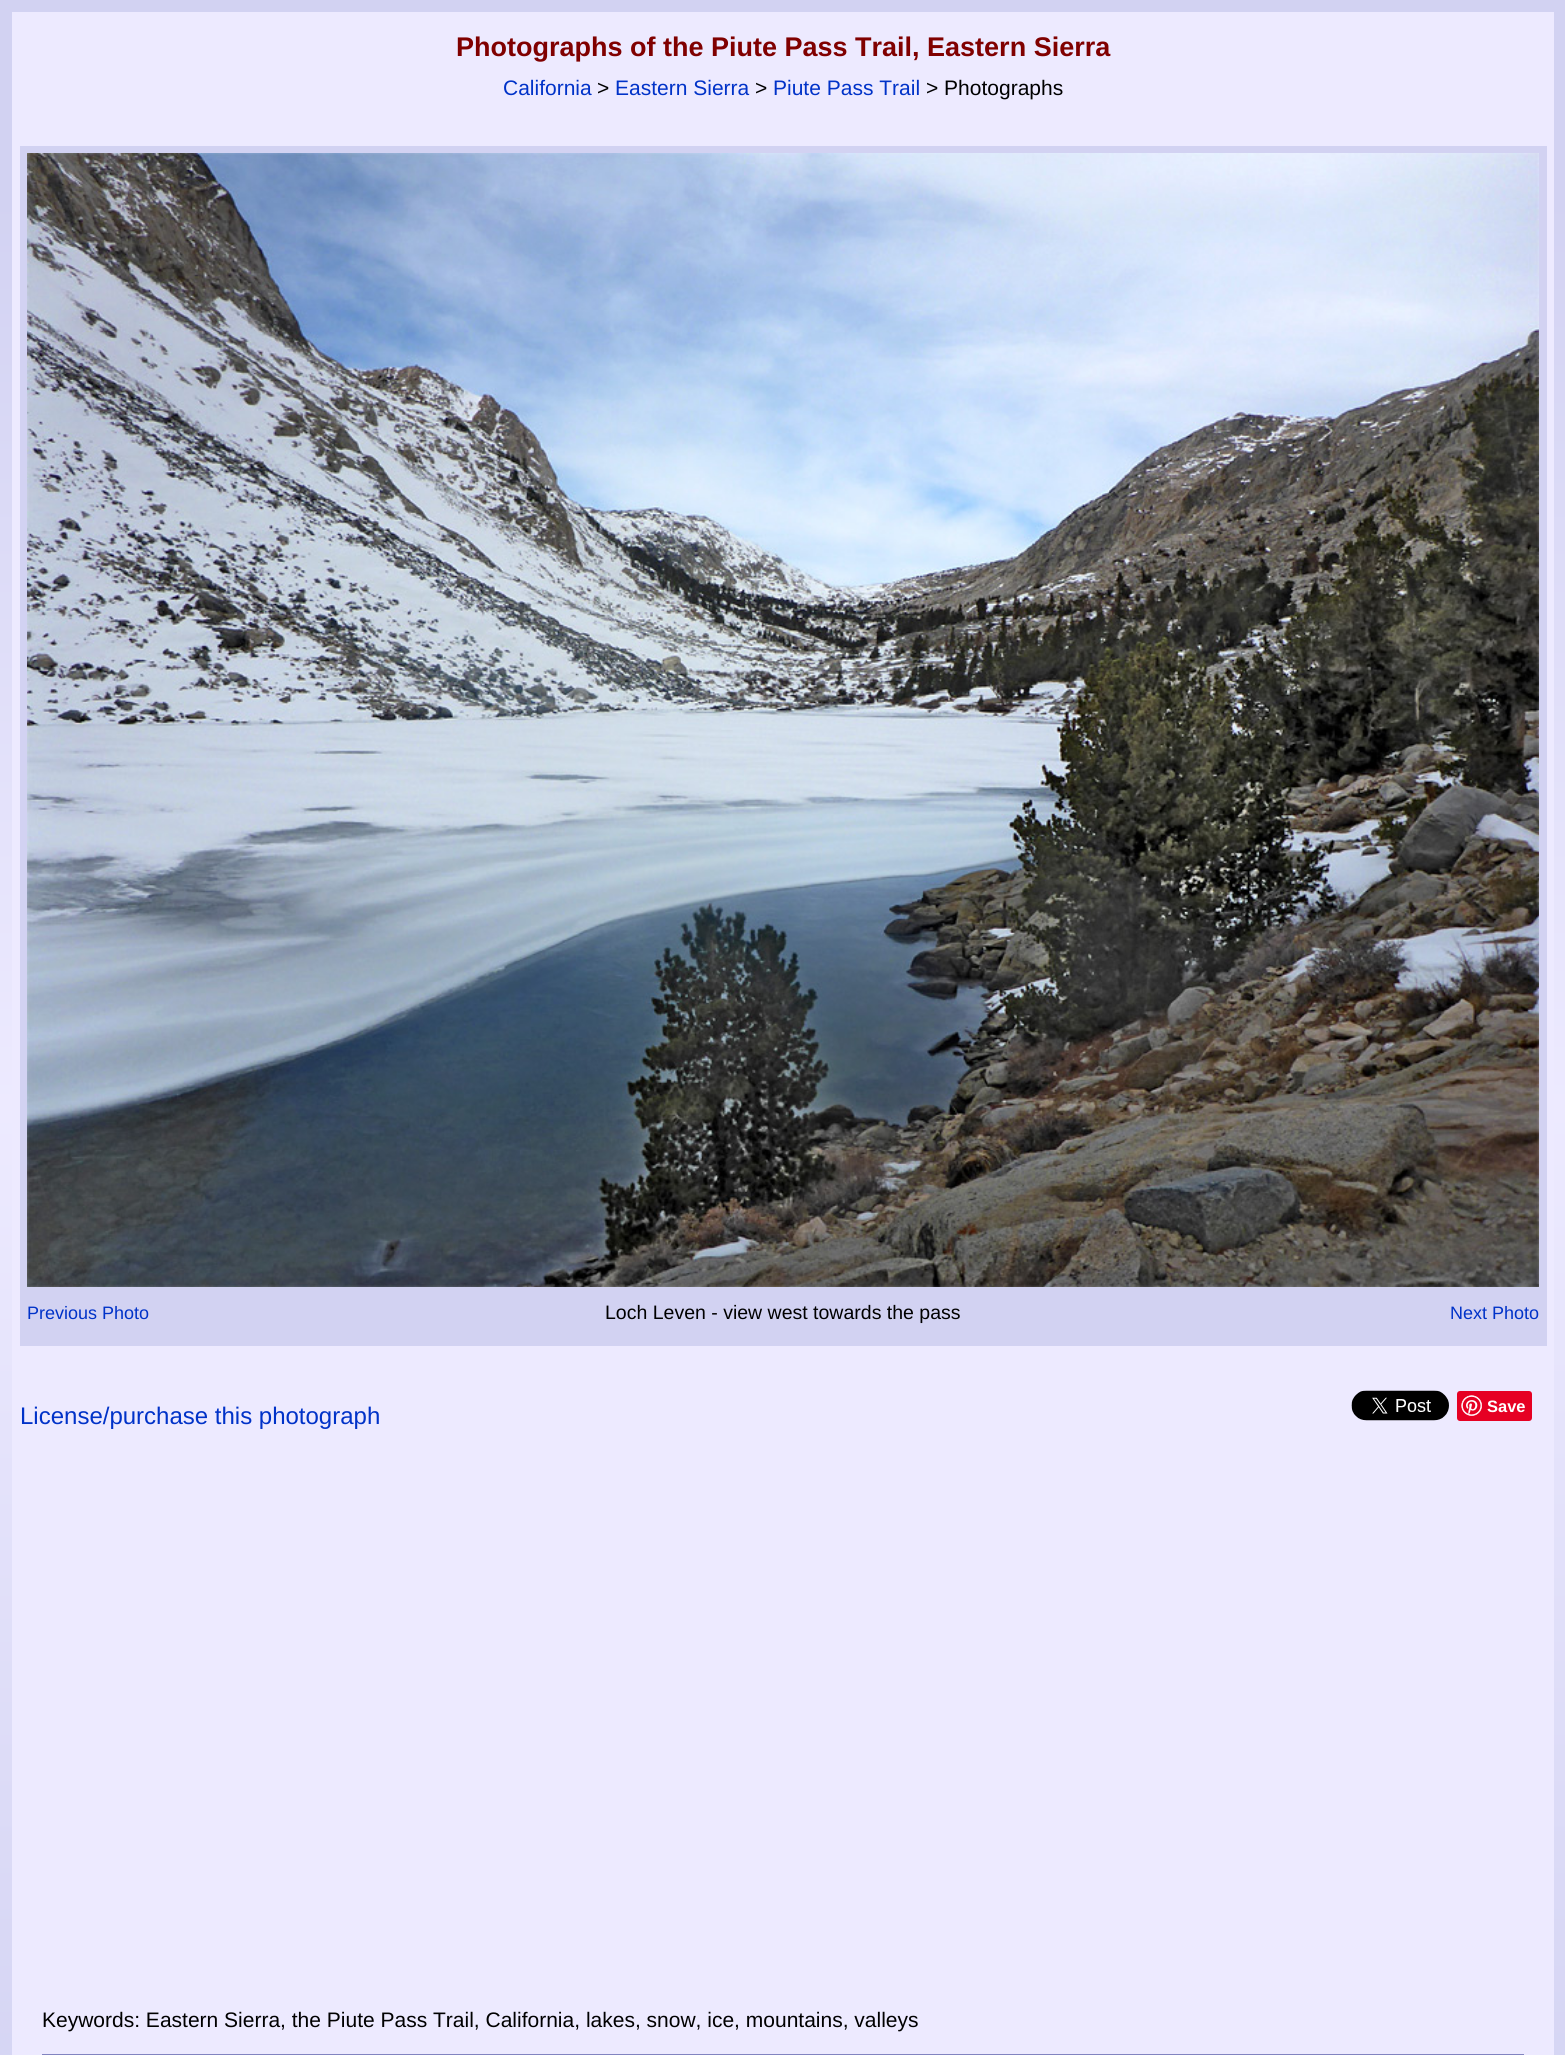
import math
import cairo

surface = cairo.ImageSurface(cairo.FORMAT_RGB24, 1565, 2055)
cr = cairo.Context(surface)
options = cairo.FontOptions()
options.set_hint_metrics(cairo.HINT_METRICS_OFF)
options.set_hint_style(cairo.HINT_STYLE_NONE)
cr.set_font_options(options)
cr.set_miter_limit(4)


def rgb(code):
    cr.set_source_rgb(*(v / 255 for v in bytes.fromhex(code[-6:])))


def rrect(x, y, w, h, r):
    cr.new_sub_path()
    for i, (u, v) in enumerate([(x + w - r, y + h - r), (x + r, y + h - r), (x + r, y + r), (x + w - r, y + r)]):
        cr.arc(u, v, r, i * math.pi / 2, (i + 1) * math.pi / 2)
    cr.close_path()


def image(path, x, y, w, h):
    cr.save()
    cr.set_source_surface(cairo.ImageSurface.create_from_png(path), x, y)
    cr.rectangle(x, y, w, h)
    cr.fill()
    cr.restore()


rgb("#ffffff")
cr.paint()
gradient = cairo.LinearGradient(783, 0, 783, 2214)
gradient.add_color_stop_rgba(0.09, 0.824, 0.824, 0.949, 1)
gradient.add_color_stop_rgba(0.5, 0.929, 0.918, 1, 1)
gradient.add_color_stop_rgba(1, 0.824, 0.824, 0.949, 1)
cr.set_source(gradient)
cr.rectangle(0, 0, 1565, 2055)
cr.fill()
rgb("#edeaff")
cr.rectangle(12, 12, 1542, 2043)
cr.fill()
rgb("#d2d2f2")
cr.rectangle(20, 146, 1527, 1200)
cr.fill()
image("img/1.png", 27, 153, 1512, 1134)
image("img/2.png", 1351, 1390, 98, 31)
rgb("#e60023")
rrect(1457, 1391, 75, 30, 3)
cr.fill()
image("img/3.png", 1461, 1395, 21, 21)
rgb("#8284c0")
cr.rectangle(42, 2054, 1482, 1)
cr.fill()
cr.select_font_face("Liberation Sans", cairo.FONT_SLANT_NORMAL, cairo.FONT_WEIGHT_BOLD)
cr.set_font_size(27)
rgb("#800000")
cr.move_to(456, 56)
cr.show_text("Photographs of the Piute Pass Trail, Eastern Sierra")
cr.select_font_face("Liberation Sans")
cr.set_font_size(21)
rgb("#0032c8")
cr.move_to(503, 95)
cr.show_text("California")
rgb("#000000")
cr.move_to(597, 95)
cr.show_text(">")
rgb("#0032c8")
cr.move_to(615, 95)
cr.show_text("Eastern Sierra")
rgb("#000000")
cr.move_to(755, 95)
cr.show_text(">")
rgb("#0032c8")
cr.move_to(773, 95)
cr.show_text("Piute Pass Trail")
rgb("#000000")
cr.move_to(926, 95)
cr.show_text("> Photographs")
cr.set_font_size(18)
rgb("#0032c8")
cr.move_to(27, 1319)
cr.show_text("Previous Photo")
cr.set_font_size(19.5)
rgb("#000000")
cr.move_to(605, 1319)
cr.show_text("Loch Leven - view west towards the pass")
cr.set_font_size(18)
rgb("#0032c8")
cr.move_to(1450, 1319)
cr.show_text("Next Photo")
cr.set_font_size(24)
cr.move_to(20, 1424)
cr.show_text("License/purchase this photograph")
cr.select_font_face("Liberation Sans", cairo.FONT_SLANT_NORMAL, cairo.FONT_WEIGHT_BOLD)
cr.set_font_size(16.5)
rgb("#ffffff")
cr.move_to(1487, 1412)
cr.show_text("Save")
cr.select_font_face("Liberation Sans")
cr.set_font_size(21)
rgb("#000000")
cr.move_to(42, 2027)
cr.show_text("Keywords: Eastern Sierra, the Piute Pass Trail, California, lakes, snow, ice, mountains, valleys")
surface.write_to_png("page.png")
